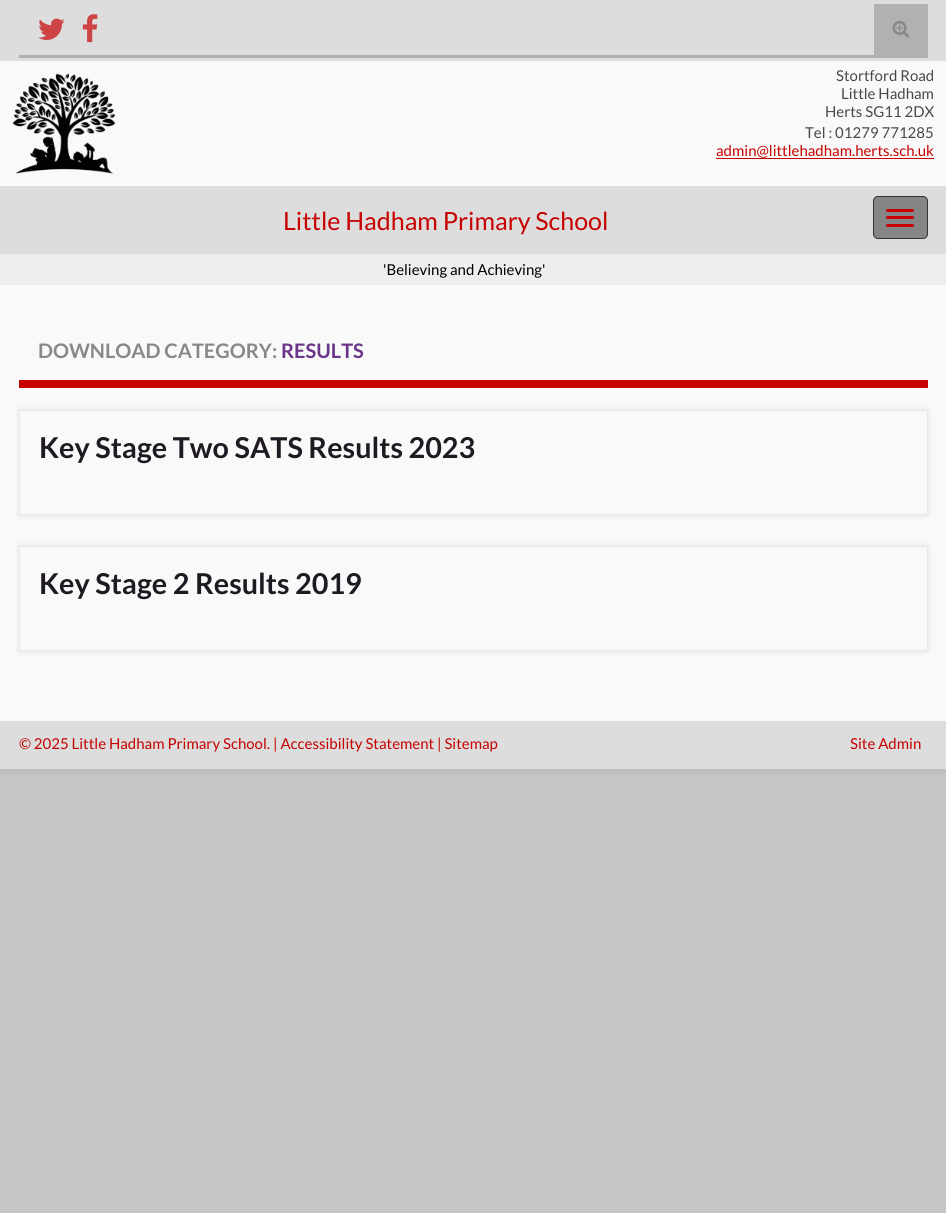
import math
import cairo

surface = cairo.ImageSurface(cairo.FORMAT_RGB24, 946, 1213)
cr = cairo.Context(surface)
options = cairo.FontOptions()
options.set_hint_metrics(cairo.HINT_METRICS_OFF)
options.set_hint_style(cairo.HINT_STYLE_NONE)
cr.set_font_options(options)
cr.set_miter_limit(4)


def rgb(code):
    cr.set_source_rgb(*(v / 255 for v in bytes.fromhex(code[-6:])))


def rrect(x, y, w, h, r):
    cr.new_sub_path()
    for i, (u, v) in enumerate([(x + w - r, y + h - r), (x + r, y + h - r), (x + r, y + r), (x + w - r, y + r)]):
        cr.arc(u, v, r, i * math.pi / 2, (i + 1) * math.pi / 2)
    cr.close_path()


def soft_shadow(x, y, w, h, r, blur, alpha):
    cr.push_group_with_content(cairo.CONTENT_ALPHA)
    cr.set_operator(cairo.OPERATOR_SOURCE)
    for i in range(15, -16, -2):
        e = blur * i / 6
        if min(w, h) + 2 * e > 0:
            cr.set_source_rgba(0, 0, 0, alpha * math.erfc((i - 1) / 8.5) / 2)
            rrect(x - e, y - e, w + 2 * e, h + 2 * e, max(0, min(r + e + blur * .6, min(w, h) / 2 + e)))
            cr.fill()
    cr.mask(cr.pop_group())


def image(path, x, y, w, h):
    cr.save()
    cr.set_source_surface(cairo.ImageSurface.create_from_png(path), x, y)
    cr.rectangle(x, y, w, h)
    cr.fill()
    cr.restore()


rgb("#c6c6c6")
cr.paint()
rgb("#000000")
soft_shadow(0, 0, 946, 769, 0, 6, 0.1)
rgb("#dddddd")
cr.rectangle(0, 0, 946, 61)
cr.fill()
image("img/1.png", 38, 18, 27, 22)
image("img/2.png", 82, 14, 16, 29)
rgb("#b1b1b1")
cr.rectangle(874, 4, 54, 51)
cr.fill()
image("img/3.png", 892, 20, 18, 18)
cr.rectangle(19, 55, 909, 3)
cr.fill()
rgb("#f9f9f9")
cr.rectangle(0, 61, 946, 125)
cr.fill()
image("img/4.png", 12, 73, 103, 101)
rgb("#c70000")
cr.rectangle(716, 158, 218, 1)
cr.fill()
rgb("#dddddd")
cr.rectangle(0, 186, 946, 68)
cr.fill()
rgb("#858585")
rrect(873.5, 196.5, 54, 42, 4.5)
cr.fill_preserve()
rgb("#333333")
cr.set_line_width(1)
cr.stroke()
rgb("#c70000")
rrect(886, 209, 28, 3, 1.5)
cr.fill()
rrect(886, 216, 28, 3, 1.5)
cr.fill()
rrect(886, 224, 28, 3, 1.5)
cr.fill()
for x, y, w, h, color in [
    (0, 254, 946, 31, "#eeeeee"),
    (0, 285, 946, 436, "#f9f9f9"),
    (19, 380, 909, 8, "#c70000"),
]:
    rgb(color)
    cr.rectangle(x, y, w, h)
    cr.fill()
rgb("#000000")
soft_shadow(19, 410, 909, 105, 0, 3, 0.1)
rgb("#f9f9f9")
cr.rectangle(19.5, 410.5, 908, 104)
cr.fill_preserve()
rgb("#e9e8e3")
cr.stroke()
rgb("#000000")
soft_shadow(19, 546, 909, 105, 0, 3, 0.1)
rgb("#f9f9f9")
cr.rectangle(19.5, 546.5, 908, 104)
cr.fill_preserve()
rgb("#e9e8e3")
cr.stroke()
rgb("#dddddd")
cr.rectangle(0, 721, 946, 48)
cr.fill()
cr.select_font_face("Lato")
cr.set_font_size(15)
rgb("#4a474b")
for x, y, s in [
    (836, 81, "Stortford Road"),
    (841, 99, "Little Hadham"),
    (825, 117, "Herts SG11 2DX"),
    (805, 138, "Tel : 01279 771285"),
]:
    cr.move_to(x, y)
    cr.show_text(s)
rgb("#c70000")
cr.move_to(716, 156)
cr.show_text("admin@littlehadham.herts.sch.uk")
cr.set_font_size(25)
cr.move_to(283, 230)
cr.show_text("Little Hadham Primary School")
cr.set_font_size(15)
rgb("#000000")
cr.move_to(383, 275)
cr.show_text("'Believing and Achieving'")
cr.select_font_face("Lato", cairo.FONT_SLANT_NORMAL, cairo.FONT_WEIGHT_BOLD)
cr.set_font_size(20)
rgb("#888888")
cr.move_to(38, 358)
cr.show_text("DOWNLOAD CATEGORY:")
rgb("#6b3589")
cr.move_to(281, 358)
cr.show_text("RESULTS")
cr.set_font_size(28.75)
rgb("#1f1a22")
cr.move_to(39, 458)
cr.show_text("Key Stage Two SATS Results 2023")
cr.move_to(39, 594)
cr.show_text("Key Stage 2 Results 2019")
cr.select_font_face("Lato")
cr.set_font_size(15)
rgb("#c70000")
for x, y, s in [
    (19, 749, "© 2025 Little Hadham Primary School."),
    (273, 749, "| Accessibility Statement | Sitemap"),
    (850, 749, "Site Admin"),
]:
    cr.move_to(x, y)
    cr.show_text(s)
surface.write_to_png("page.png")
